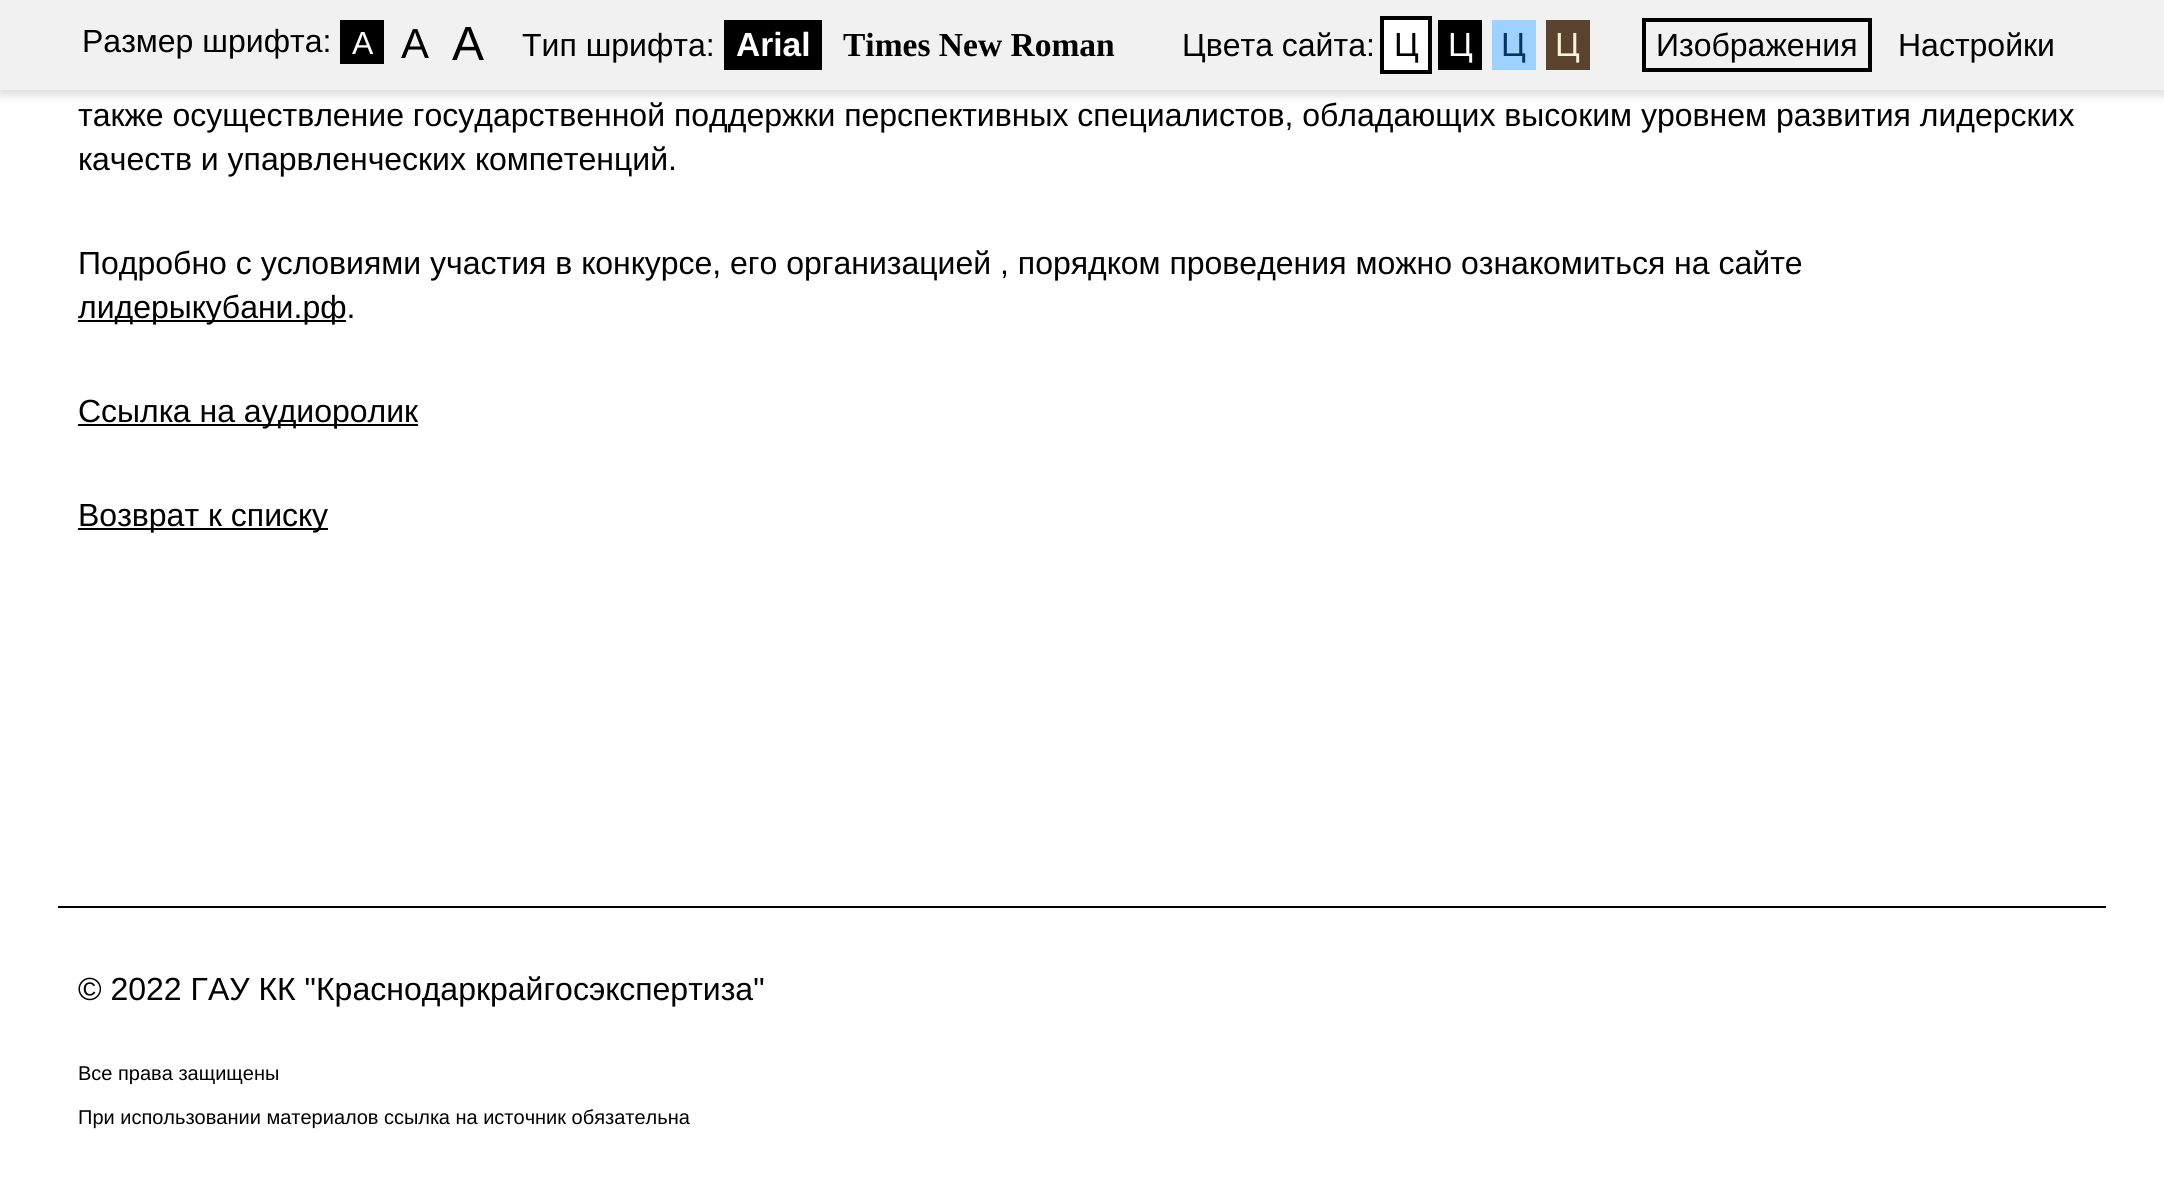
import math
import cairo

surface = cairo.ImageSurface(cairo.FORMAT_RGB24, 2164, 1188)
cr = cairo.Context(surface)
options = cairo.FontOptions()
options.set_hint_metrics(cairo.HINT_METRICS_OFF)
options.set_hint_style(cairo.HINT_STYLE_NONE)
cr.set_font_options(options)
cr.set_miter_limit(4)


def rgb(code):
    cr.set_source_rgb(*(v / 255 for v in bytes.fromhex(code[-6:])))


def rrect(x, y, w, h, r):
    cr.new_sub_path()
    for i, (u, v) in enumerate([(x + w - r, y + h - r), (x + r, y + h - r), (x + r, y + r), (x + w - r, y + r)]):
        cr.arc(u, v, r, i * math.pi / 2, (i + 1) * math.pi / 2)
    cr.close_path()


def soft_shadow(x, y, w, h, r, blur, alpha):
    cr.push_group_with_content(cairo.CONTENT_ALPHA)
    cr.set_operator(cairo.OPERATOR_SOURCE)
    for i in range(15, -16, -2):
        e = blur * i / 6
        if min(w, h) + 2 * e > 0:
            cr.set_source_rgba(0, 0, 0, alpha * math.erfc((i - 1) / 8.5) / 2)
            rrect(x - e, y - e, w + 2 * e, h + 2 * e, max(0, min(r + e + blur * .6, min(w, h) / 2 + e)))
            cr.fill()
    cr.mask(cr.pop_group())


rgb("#ffffff")
cr.paint()
rgb("#010101")
soft_shadow(-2, 2, 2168, 94, 0, 4, 0.12)
for x, y, w, h, color in [
    (0, 0, 2164, 90, "#f1f1f1"),
    (340, 20, 44, 44, "#000000"),
    (724, 20, 98, 50, "#000000"),
    (1384, 20, 44, 50, "#ffffff"),
]:
    rgb(color)
    cr.rectangle(x, y, w, h)
    cr.fill()
cr.rectangle(1382, 18, 48, 54)
rgb("#000000")
cr.set_line_width(4)
cr.stroke()
for x, y, w, h, color in [
    (1438, 20, 44, 50, "#000000"),
    (1492, 20, 44, 50, "#9dd1ff"),
    (1546, 20, 44, 50, "#59422e"),
]:
    rgb(color)
    cr.rectangle(x, y, w, h)
    cr.fill()
cr.rectangle(1644, 20, 226, 50)
rgb("#000000")
cr.stroke()
for x, y, w, h, color in [
    (78, 320, 268, 2, "#000000"),
    (78, 424, 340, 2, "#000000"),
    (78, 528, 250, 2, "#000000"),
    (58, 906, 2048, 2, "#000000"),
]:
    rgb(color)
    cr.rectangle(x, y, w, h)
    cr.fill()
cr.select_font_face("Liberation Sans")
cr.set_font_size(32)
cr.move_to(82, 52)
cr.show_text("Размер шрифта:")
rgb("#ffffff")
cr.move_to(352, 54)
cr.show_text("A")
cr.set_font_size(42)
rgb("#000000")
cr.move_to(401, 58)
cr.show_text("A")
cr.set_font_size(48)
cr.move_to(452, 60)
cr.show_text("A")
cr.set_font_size(32)
cr.move_to(522, 56)
cr.show_text("Тип шрифта:")
cr.select_font_face("Liberation Sans", cairo.FONT_SLANT_NORMAL, cairo.FONT_WEIGHT_BOLD)
cr.set_font_size(33.5)
rgb("#ffffff")
cr.move_to(736, 56)
cr.show_text("Arial")
cr.select_font_face("Liberation Serif", cairo.FONT_SLANT_NORMAL, cairo.FONT_WEIGHT_BOLD)
rgb("#000000")
cr.move_to(843, 56)
cr.show_text("Times New Roman")
cr.select_font_face("Liberation Sans")
cr.set_font_size(32)
cr.move_to(1182, 56)
cr.show_text("Цвета сайта:")
cr.set_font_size(33.5)
cr.move_to(1394, 56)
cr.show_text("Ц")
rgb("#ffffff")
cr.move_to(1448, 56)
cr.show_text("Ц")
rgb("#063462")
cr.move_to(1501, 56)
cr.show_text("Ц")
rgb("#f7f3d6")
cr.move_to(1555, 56)
cr.show_text("Ц")
cr.set_font_size(32)
rgb("#000000")
for x, y, s in [
    (1656, 56, "Изображения"),
    (1898, 56, "Настройки"),
    (78, 126, "также осуществление государственной поддержки перспективных специалистов, обладающих высоким уровнем развития лидерских"),
    (78, 170, "качеств и упарвленческих компетенций."),
    (78, 274, "Подробно с условиями участия в конкурсе, его организацией , порядком проведения можно ознакомиться на сайте"),
    (78, 318, "лидерыкубани.рф."),
    (78, 422, "Ссылка на аудиоролик"),
    (78, 526, "Возврат к списку"),
    (78, 1000, "© 2022 ГАУ КК \"Краснодаркрайгосэкспертиза\""),
]:
    cr.move_to(x, y)
    cr.show_text(s)
cr.set_font_size(20)
cr.move_to(78, 1080)
cr.show_text("Все права защищены")
cr.move_to(78, 1124)
cr.show_text("При использовании материалов ссылка на источник обязательна")
surface.write_to_png("page.png")
